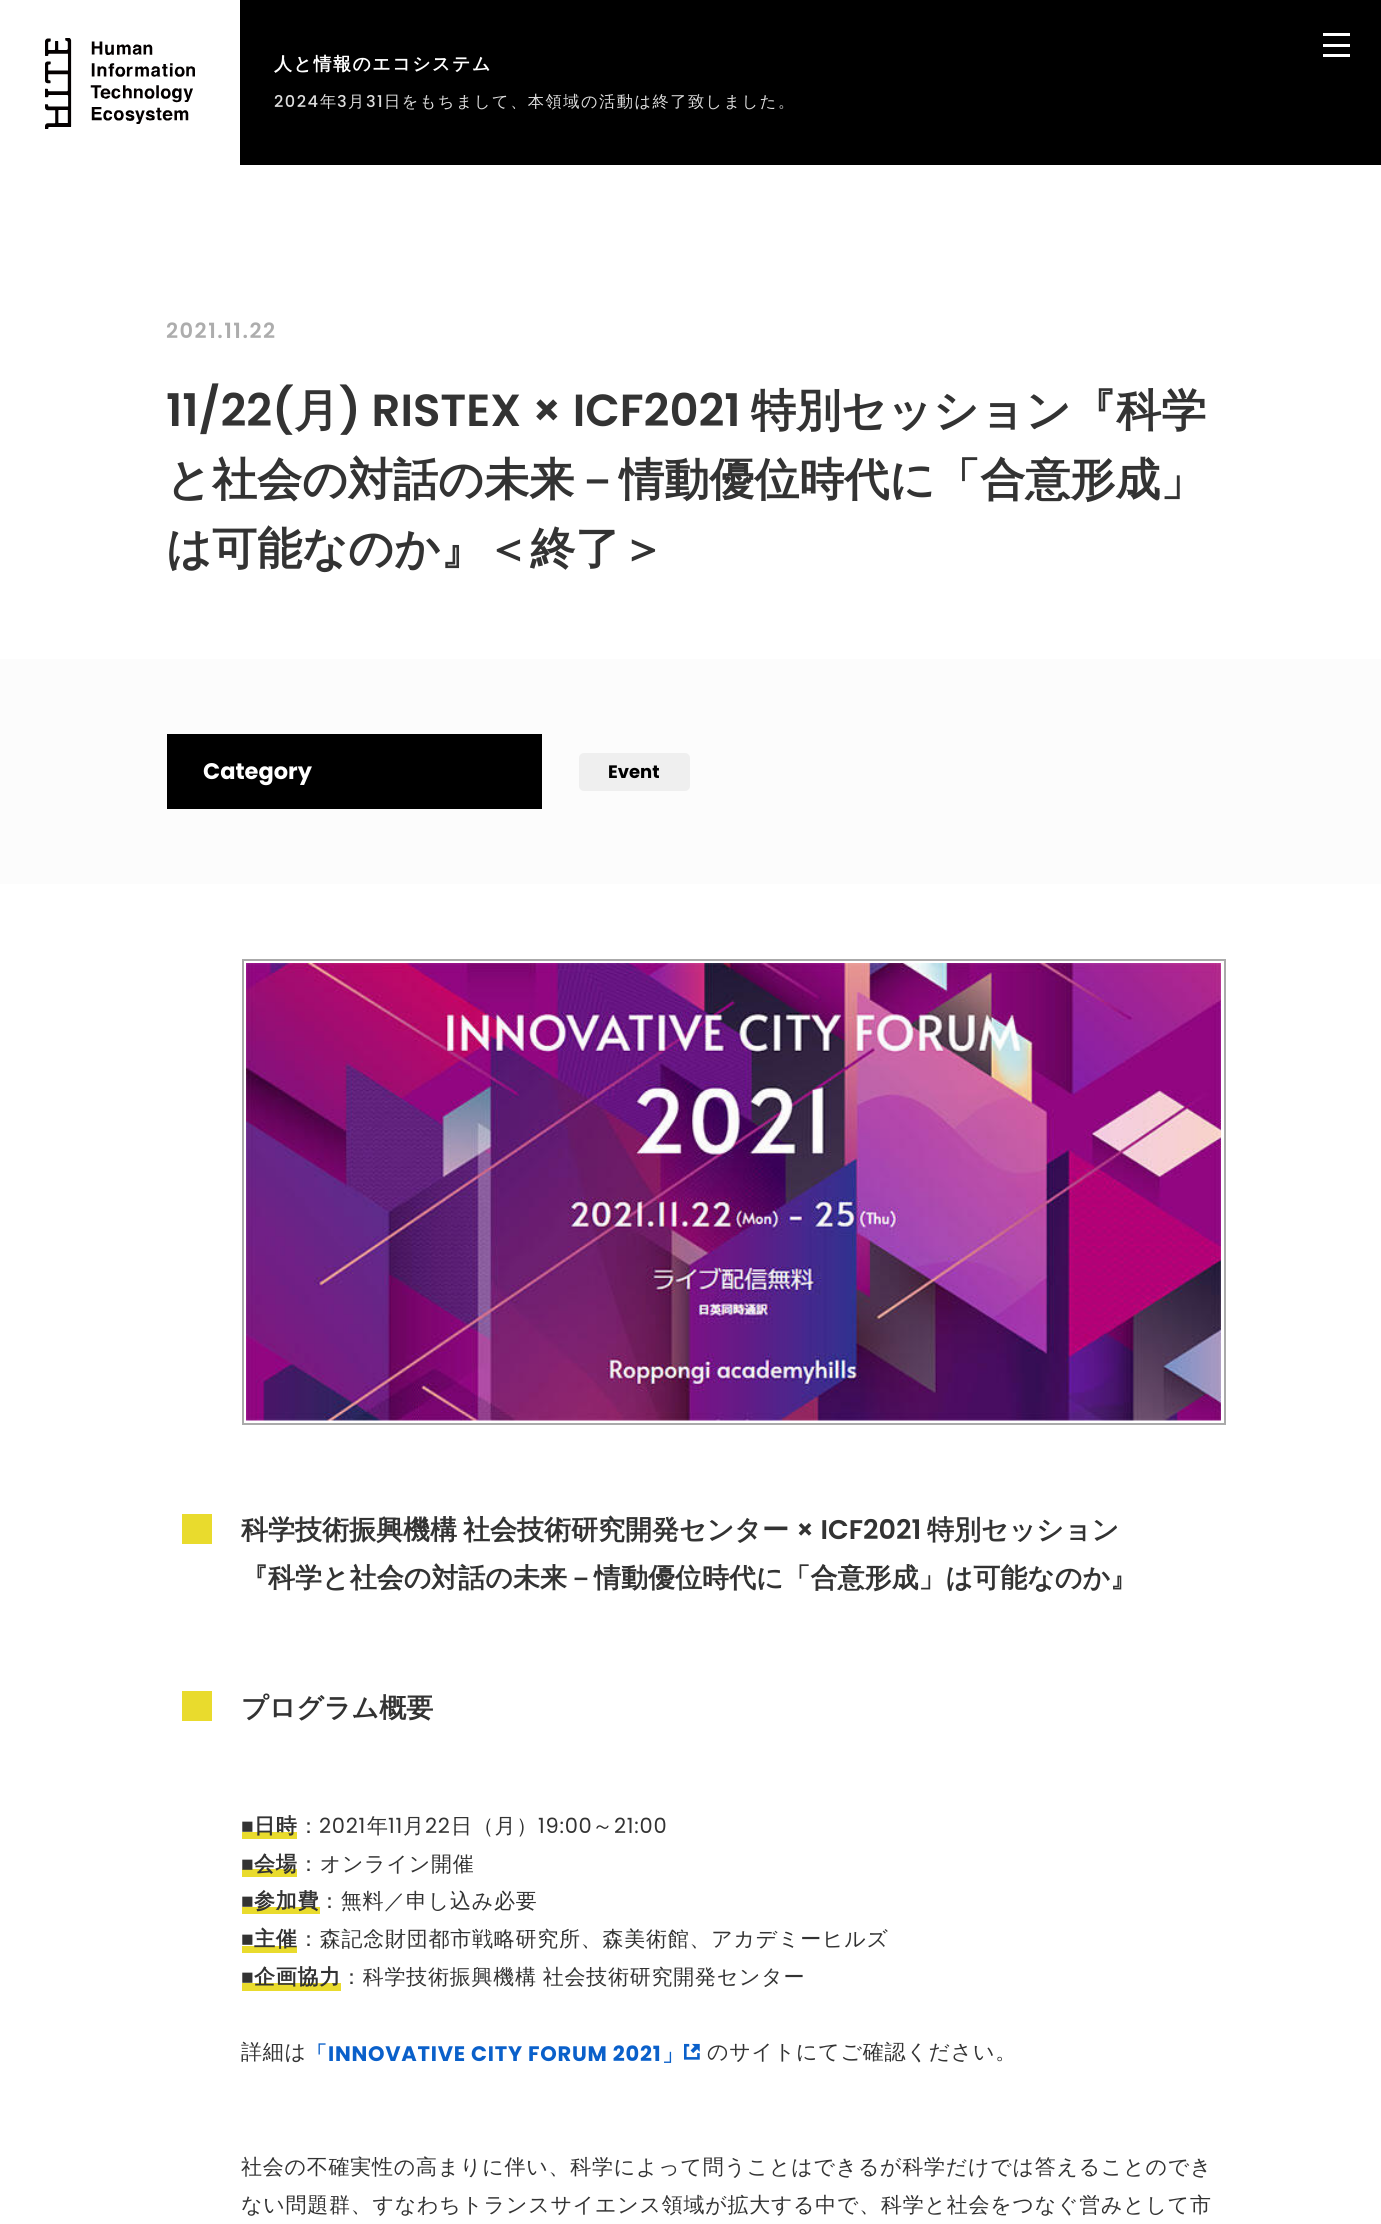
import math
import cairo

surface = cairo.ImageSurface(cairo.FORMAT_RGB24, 1381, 2224)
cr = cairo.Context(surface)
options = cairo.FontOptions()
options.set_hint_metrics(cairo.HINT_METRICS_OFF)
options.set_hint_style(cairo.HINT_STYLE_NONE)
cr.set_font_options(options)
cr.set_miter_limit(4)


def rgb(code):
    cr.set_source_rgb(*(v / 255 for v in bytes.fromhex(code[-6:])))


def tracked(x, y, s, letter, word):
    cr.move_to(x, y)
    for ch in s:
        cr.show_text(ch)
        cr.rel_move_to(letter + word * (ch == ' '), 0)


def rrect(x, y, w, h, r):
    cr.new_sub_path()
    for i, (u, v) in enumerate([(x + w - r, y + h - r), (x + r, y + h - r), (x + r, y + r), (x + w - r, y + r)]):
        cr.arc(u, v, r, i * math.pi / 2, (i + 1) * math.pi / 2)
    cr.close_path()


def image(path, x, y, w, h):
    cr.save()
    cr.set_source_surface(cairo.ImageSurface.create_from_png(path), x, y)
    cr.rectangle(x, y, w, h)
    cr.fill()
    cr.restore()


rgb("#ffffff")
cr.paint()
for x, y, w, h, color in [
    (240, 0, 1141, 165, "#000000"),
    (1323, 33, 27, 3, "#ffffff"),
    (1323, 44, 27, 3, "#ffffff"),
    (1323, 54, 27, 3, "#ffffff"),
]:
    rgb(color)
    cr.rectangle(x, y, w, h)
    cr.fill()
image("img/1.png", 45, 38, 150, 91)
rgb("#fcfcfc")
cr.rectangle(0, 659, 1381, 225)
cr.fill()
rgb("#000000")
cr.rectangle(167, 734, 375, 75)
cr.fill()
rgb("#efefef")
rrect(579, 753, 111, 38, 5)
cr.fill()
cr.rectangle(243, 960, 982, 464)
rgb("#aaaaaa")
cr.stroke()
image("img/2.png", 246, 963, 975, 458)
for x, y, w, h, color in [
    (182, 1514, 30, 30, "#e9db2d"),
    (182, 1691, 30, 30, "#e9db2d"),
    (242, 1832, 55, 7, "#e9db2d"),
    (242, 1869, 55, 8, "#e9db2d"),
    (242, 1907, 78, 7, "#e9db2d"),
    (242, 1946, 55, 7, "#e9db2d"),
    (242, 1983, 99, 8, "#e9db2d"),
]:
    rgb(color)
    cr.rectangle(x, y, w, h)
    cr.fill()
image("img/3.png", 684, 2043, 16, 17)
cr.select_font_face("WenQuanYi Zen Hei", cairo.FONT_SLANT_NORMAL, cairo.FONT_WEIGHT_BOLD)
cr.set_font_size(18)
rgb("#ffffff")
tracked(274, 70, "人と情報のエコシステム", 1.5, 0)
cr.select_font_face("Poppins Medium")
cr.set_font_size(16.2)
rgb("#dddddd")
tracked(274, 107, "2024", 1.5, 0)
cr.select_font_face("WenQuanYi Zen Hei Medium")
tracked(320, 107, "年", 1.5, 0)
cr.select_font_face("Poppins Medium")
tracked(337, 107, "3", 1.5, 0)
cr.select_font_face("WenQuanYi Zen Hei Medium")
tracked(348, 107, "月", 1.5, 0)
cr.select_font_face("Poppins Medium")
tracked(366, 107, "31", 1.5, 0)
cr.select_font_face("WenQuanYi Zen Hei Medium")
tracked(384, 107, "日をもちまして、本領域の活動は終了致しました。", 1.5, 0)
cr.select_font_face("Poppins SemiBold")
cr.set_font_size(21)
rgb("#adadad")
tracked(166, 338, "2021.11.22", 1.5, 0)
cr.set_font_size(45)
rgb("#333333")
cr.move_to(166, 426)
cr.show_text("11/22(")
cr.select_font_face("WenQuanYi Zen Hei", cairo.FONT_SLANT_NORMAL, cairo.FONT_WEIGHT_BOLD)
cr.move_to(294, 426)
cr.show_text("月")
cr.select_font_face("Poppins SemiBold")
cr.move_to(339, 426)
cr.show_text(") RISTEX × ICF2021")
cr.select_font_face("WenQuanYi Zen Hei", cairo.FONT_SLANT_NORMAL, cairo.FONT_WEIGHT_BOLD)
for x, y, s in [
    (751, 426, "特別セッション『科学"),
    (166, 495, "と社会の対話の未来－情動優位時代に「合意形成」"),
    (166, 564, "は可能なのか』＜終了＞"),
]:
    cr.move_to(x, y)
    cr.show_text(s)
cr.select_font_face("Poppins", cairo.FONT_SLANT_NORMAL, cairo.FONT_WEIGHT_BOLD)
cr.set_font_size(22.5)
rgb("#ffffff")
cr.move_to(203, 779)
cr.show_text("Category")
cr.set_font_size(18)
rgb("#000000")
cr.move_to(608, 778)
cr.show_text("Event")
cr.select_font_face("WenQuanYi Zen Hei", cairo.FONT_SLANT_NORMAL, cairo.FONT_WEIGHT_BOLD)
cr.set_font_size(27)
rgb("#333333")
cr.move_to(241, 1539)
cr.show_text("科学技術振興機構")
cr.move_to(463, 1539)
cr.show_text("社会技術研究開発センター")
cr.select_font_face("Poppins SemiBold")
cr.move_to(796, 1539)
cr.show_text("× ICF2021")
cr.select_font_face("WenQuanYi Zen Hei", cairo.FONT_SLANT_NORMAL, cairo.FONT_WEIGHT_BOLD)
for x, y, s in [
    (927, 1539, "特別セッション"),
    (241, 1587, "『科学と社会の対話の未来－情動優位時代に「合意形成」は可能なのか』"),
    (241, 1717, "プログラム概要"),
]:
    cr.move_to(x, y)
    cr.show_text(s)
cr.select_font_face("Liberation Sans", cairo.FONT_SLANT_NORMAL, cairo.FONT_WEIGHT_BOLD)
cr.set_font_size(21)
tracked(241, 1833, "■", 0.75, 0)
cr.select_font_face("WenQuanYi Zen Hei", cairo.FONT_SLANT_NORMAL, cairo.FONT_WEIGHT_BOLD)
tracked(254, 1833, "日時", 0.75, 0)
cr.select_font_face("WenQuanYi Zen Hei Medium")
tracked(298, 1833, "：", 0.75, 0)
cr.select_font_face("Poppins")
tracked(319, 1833, "2021", 0.75, 0)
cr.select_font_face("WenQuanYi Zen Hei Medium")
tracked(367, 1833, "年", 0.75, 0)
cr.select_font_face("Poppins")
tracked(388, 1833, "11", 0.75, 0)
cr.select_font_face("WenQuanYi Zen Hei Medium")
tracked(403, 1833, "月", 0.75, 0)
cr.select_font_face("Poppins")
tracked(425, 1833, "22", 0.75, 0)
cr.select_font_face("WenQuanYi Zen Hei Medium")
tracked(451, 1833, "日（月）", 0.75, 0)
cr.select_font_face("Poppins")
tracked(538, 1833, "19:00", 0.75, 0)
cr.select_font_face("WenQuanYi Zen Hei Medium")
tracked(592, 1833, "～", 0.75, 0)
cr.select_font_face("Poppins")
tracked(614, 1833, "21:00", 0.75, 0)
cr.select_font_face("Liberation Sans", cairo.FONT_SLANT_NORMAL, cairo.FONT_WEIGHT_BOLD)
tracked(241, 1871, "■", 0.75, 0)
cr.select_font_face("WenQuanYi Zen Hei", cairo.FONT_SLANT_NORMAL, cairo.FONT_WEIGHT_BOLD)
tracked(254, 1871, "会場", 0.75, 0)
cr.select_font_face("WenQuanYi Zen Hei Medium")
tracked(298, 1871, "：オンライン開催", 0.75, 0)
cr.select_font_face("Liberation Sans", cairo.FONT_SLANT_NORMAL, cairo.FONT_WEIGHT_BOLD)
tracked(241, 1908, "■", 0.75, 0)
cr.select_font_face("WenQuanYi Zen Hei", cairo.FONT_SLANT_NORMAL, cairo.FONT_WEIGHT_BOLD)
tracked(254, 1908, "参加費", 0.75, 0)
cr.select_font_face("WenQuanYi Zen Hei Medium")
tracked(319, 1908, "：無料／申し込み必要", 0.75, 0)
cr.select_font_face("Liberation Sans", cairo.FONT_SLANT_NORMAL, cairo.FONT_WEIGHT_BOLD)
tracked(241, 1946, "■", 0.75, 0)
cr.select_font_face("WenQuanYi Zen Hei", cairo.FONT_SLANT_NORMAL, cairo.FONT_WEIGHT_BOLD)
tracked(254, 1946, "主催", 0.75, 0)
cr.select_font_face("WenQuanYi Zen Hei Medium")
tracked(298, 1946, "：森記念財団都市戦略研究所、森美術館、アカデミーヒルズ", 0.75, 0)
cr.select_font_face("Liberation Sans", cairo.FONT_SLANT_NORMAL, cairo.FONT_WEIGHT_BOLD)
tracked(241, 1984, "■", 0.75, 0)
cr.select_font_face("WenQuanYi Zen Hei", cairo.FONT_SLANT_NORMAL, cairo.FONT_WEIGHT_BOLD)
tracked(254, 1984, "企画協力", 0.75, 0)
cr.select_font_face("WenQuanYi Zen Hei Medium")
tracked(341, 1984, "：科学技術振興機構 社会技術研究開発センター", 0.75, -1)
tracked(241, 2059, "詳細は", 0.75, 0)
cr.select_font_face("WenQuanYi Zen Hei", cairo.FONT_SLANT_NORMAL, cairo.FONT_WEIGHT_BOLD)
rgb("#0a60ca")
tracked(306, 2061, "「", 0.75, 0)
cr.select_font_face("Poppins", cairo.FONT_SLANT_NORMAL, cairo.FONT_WEIGHT_BOLD)
tracked(328, 2061, "INNOVATIVE CITY FORUM 2021", 0.75, 0)
cr.select_font_face("WenQuanYi Zen Hei", cairo.FONT_SLANT_NORMAL, cairo.FONT_WEIGHT_BOLD)
tracked(662, 2061, "」", 0.75, 0)
cr.select_font_face("WenQuanYi Zen Hei Medium")
rgb("#333333")
for x, y, s in [
    (707, 2059, "のサイトにてご確認ください。"),
    (241, 2174, "社会の不確実性の高まりに伴い、科学によって問うことはできるが科学だけでは答えることのでき"),
    (241, 2212, "ない問題群、すなわちトランスサイエンス領域が拡大する中で、科学と社会をつなぐ営みとして市"),
]:
    tracked(x, y, s, 0.75, 0)
surface.write_to_png("page.png")
